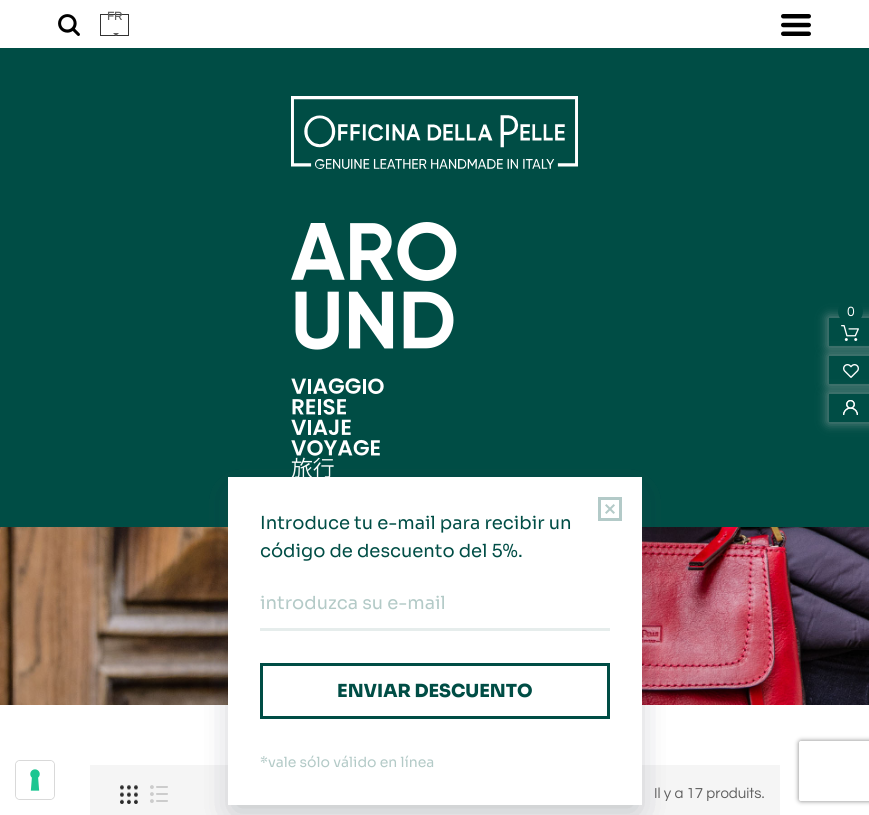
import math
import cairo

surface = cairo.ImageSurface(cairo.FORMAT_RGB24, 869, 815)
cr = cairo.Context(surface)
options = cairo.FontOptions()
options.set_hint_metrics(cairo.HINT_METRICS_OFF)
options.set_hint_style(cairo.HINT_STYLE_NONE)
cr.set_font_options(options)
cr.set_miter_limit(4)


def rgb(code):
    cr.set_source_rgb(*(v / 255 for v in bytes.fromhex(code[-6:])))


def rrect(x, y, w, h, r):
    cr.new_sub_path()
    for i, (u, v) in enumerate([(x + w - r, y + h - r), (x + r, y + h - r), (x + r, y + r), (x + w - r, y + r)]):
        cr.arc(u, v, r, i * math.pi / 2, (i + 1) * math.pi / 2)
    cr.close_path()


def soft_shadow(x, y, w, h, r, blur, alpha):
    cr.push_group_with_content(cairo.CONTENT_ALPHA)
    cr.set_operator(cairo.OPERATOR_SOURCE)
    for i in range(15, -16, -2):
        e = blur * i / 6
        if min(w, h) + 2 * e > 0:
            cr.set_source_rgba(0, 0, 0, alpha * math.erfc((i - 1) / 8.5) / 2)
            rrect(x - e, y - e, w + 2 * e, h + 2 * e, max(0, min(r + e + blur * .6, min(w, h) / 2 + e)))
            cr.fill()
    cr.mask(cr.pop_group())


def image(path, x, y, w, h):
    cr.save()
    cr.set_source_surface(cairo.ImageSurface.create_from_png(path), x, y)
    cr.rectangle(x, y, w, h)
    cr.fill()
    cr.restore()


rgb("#ffffff")
cr.paint()
image("img/1.png", 58, 14, 22, 22)
cr.rectangle(100.5, 14.5, 28, 21)
rgb("#333333")
cr.set_line_width(1)
cr.stroke()
rgb("#5f5f5f")
cr.new_path()
cr.move_to(113, 33)
cr.line_to(119, 33)
cr.line_to(116, 36)
cr.close_path()
cr.fill()
image("img/2.png", 781, 14, 30, 22)
rgb("#004d45")
cr.rectangle(0, 48, 869, 479)
cr.fill()
image("img/3.png", 291, 96, 287, 73)
image("img/4.png", 291, 222, 166, 255)
image("img/5.png", 0, 527, 869, 178)
cr.save()
cr.set_fill_rule(cairo.FILL_RULE_EVEN_ODD)
cr.new_path()
cr.move_to(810, 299)
cr.line_to(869, 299)
cr.line_to(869, 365)
cr.line_to(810, 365)
cr.close_path()
cr.move_to(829, 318)
cr.line_to(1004, 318)
cr.line_to(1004, 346)
cr.line_to(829, 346)
cr.close_path()
cr.clip()
rgb("#b8b8b8")
soft_shadow(828, 317, 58, 30, 0, 5.5, 0.6)
cr.restore()
cr.arc(850.5, 311.5, 12.5, 0, 2 * math.pi)
cr.fill()
rgb("#b8b8b8")
soft_shadow(828, 355, 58, 30, 0, 5.5, 0.6)
image("img/6.png", 841, 325, 18, 16)
rgb("#004d45")
cr.rectangle(829, 356, 40, 28)
cr.fill()
rgb("#b8b8b8")
soft_shadow(828, 393, 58, 30, 0, 5.5, 0.6)
image("img/7.png", 843, 364, 16, 14)
rgb("#004d45")
cr.rectangle(829, 394, 40, 28)
cr.fill()
image("img/8.png", 843, 400, 15, 15)
rgb("#f5f5f5")
cr.rectangle(90, 765, 690, 50)
cr.fill()
image("img/9.png", 120, 785, 18, 19)
image("img/10.png", 150, 785, 18, 18)
rgb("#363d4d")
soft_shadow(233, 493, 404, 318, 0, 16, 0.15)
rrect(15.5, 760.5, 39, 39, 4.5)
rgb("#d9d9d9")
cr.stroke()
rgb("#ffffff")
rrect(16, 761, 38, 38, 4)
cr.fill()
image("img/11.png", 30, 769, 10, 22)
rgb("#363d4d")
soft_shadow(233, 493, 404, 318, 0, 16, 0.15)
rgb("#ffffff")
cr.rectangle(228, 477, 414, 328)
cr.fill()
image("img/12.png", 598, 497, 24, 24)
rgb("#e6edec")
cr.rectangle(260, 628, 350, 3)
cr.fill()
cr.rectangle(261.5, 664.5, 347, 53)
rgb("#004d45")
cr.set_line_width(3)
cr.stroke()
cr.save()
cr.set_fill_rule(cairo.FILL_RULE_EVEN_ODD)
cr.new_path()
cr.move_to(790, 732)
cr.line_to(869, 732)
cr.line_to(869, 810)
cr.line_to(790, 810)
cr.close_path()
cr.move_to(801, 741)
cr.line_to(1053, 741)
cr.curve_to(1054, 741, 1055, 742, 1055, 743)
cr.line_to(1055, 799)
cr.curve_to(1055, 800, 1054, 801, 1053, 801)
cr.line_to(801, 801)
cr.curve_to(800, 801, 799, 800, 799, 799)
cr.line_to(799, 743)
cr.curve_to(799, 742, 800, 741, 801, 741)
cr.close_path()
cr.clip()
rgb("#808080")
soft_shadow(799, 741, 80, 60, 2, 2.5, 1)
cr.restore()
cr.select_font_face("Questrial", cairo.FONT_SLANT_NORMAL, cairo.FONT_WEIGHT_BOLD)
cr.set_font_size(12)
rgb("#5f5f5f")
cr.move_to(107, 20)
cr.show_text("FR")
cr.select_font_face("Questrial")
cr.set_font_size(14)
rgb("#ffffff")
cr.move_to(847, 316)
cr.show_text("0")
cr.set_font_size(15)
rgb("#5f5f5f")
cr.move_to(654, 798)
cr.show_text("Il y a 17 produits.")
cr.select_font_face("Sora")
cr.set_font_size(18)
rgb("#004d45")
cr.move_to(260, 529)
cr.show_text("Introduce tu e-mail para recibir un")
cr.move_to(260, 557)
cr.show_text("código de descuento del 5%.")
rgb("#b3cac7")
cr.move_to(260, 609)
cr.show_text("introduzca su e-mail")
cr.select_font_face("Sora ExtraBold")
rgb("#004d45")
cr.move_to(337, 697)
cr.show_text("ENVIAR DESCUENTO")
cr.select_font_face("Sora")
cr.set_font_size(14)
rgb("#b3cac7")
cr.move_to(260, 767)
cr.show_text("*vale sólo válido en línea")
surface.write_to_png("page.png")
